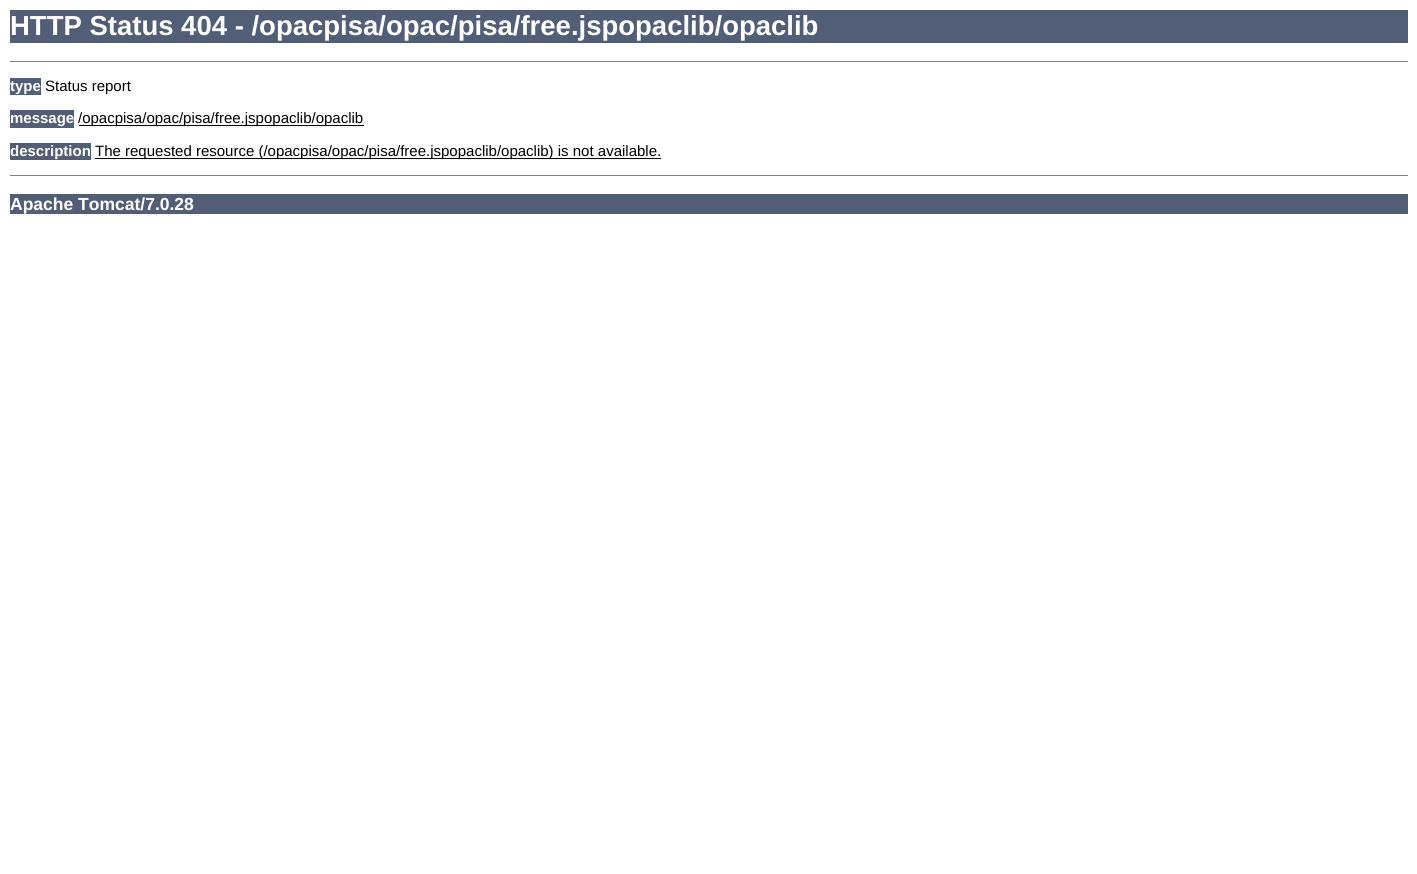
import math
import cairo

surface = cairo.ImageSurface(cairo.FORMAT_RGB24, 1417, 874)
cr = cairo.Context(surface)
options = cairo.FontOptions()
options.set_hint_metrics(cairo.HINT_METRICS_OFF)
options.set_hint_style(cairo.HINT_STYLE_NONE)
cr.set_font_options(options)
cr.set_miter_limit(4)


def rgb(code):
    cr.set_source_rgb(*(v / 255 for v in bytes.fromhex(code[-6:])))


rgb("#ffffff")
cr.paint()
for x, y, w, h, color in [
    (10, 10, 1398, 33, "#525d76"),
    (10, 61, 1398, 1, "#808080"),
    (10, 78, 31, 17, "#525d76"),
    (10, 110, 64, 18, "#525d76"),
    (79, 125, 285, 1, "#000000"),
    (10, 143, 81, 17, "#525d76"),
    (95, 158, 566, 1, "#000000"),
    (10, 175, 1398, 1, "#808080"),
    (10, 194, 1398, 20, "#525d76"),
]:
    rgb(color)
    cr.rectangle(x, y, w, h)
    cr.fill()
cr.select_font_face("Liberation Sans", cairo.FONT_SLANT_NORMAL, cairo.FONT_WEIGHT_BOLD)
cr.set_font_size(27.5)
rgb("#ffffff")
cr.move_to(10, 35)
cr.show_text("HTTP Status 404 - /opacpisa/opac/pisa/free.jspopaclib/opaclib")
cr.set_font_size(15)
cr.move_to(10, 91)
cr.show_text("type")
cr.select_font_face("Liberation Sans")
rgb("#000000")
cr.move_to(45, 91)
cr.show_text("Status report")
cr.select_font_face("Liberation Sans", cairo.FONT_SLANT_NORMAL, cairo.FONT_WEIGHT_BOLD)
rgb("#ffffff")
cr.move_to(10, 123)
cr.show_text("message")
cr.select_font_face("Liberation Sans")
rgb("#000000")
cr.move_to(78, 123)
cr.show_text("/opacpisa/opac/pisa/free.jspopaclib/opaclib")
cr.select_font_face("Liberation Sans", cairo.FONT_SLANT_NORMAL, cairo.FONT_WEIGHT_BOLD)
rgb("#ffffff")
cr.move_to(10, 156)
cr.show_text("description")
cr.select_font_face("Liberation Sans")
rgb("#000000")
cr.move_to(95, 156)
cr.show_text("The requested resource (/opacpisa/opac/pisa/free.jspopaclib/opaclib) is not available.")
cr.select_font_face("Liberation Sans", cairo.FONT_SLANT_NORMAL, cairo.FONT_WEIGHT_BOLD)
cr.set_font_size(17.5)
rgb("#ffffff")
cr.move_to(10, 210)
cr.show_text("Apache Tomcat/7.0.28")
surface.write_to_png("page.png")
